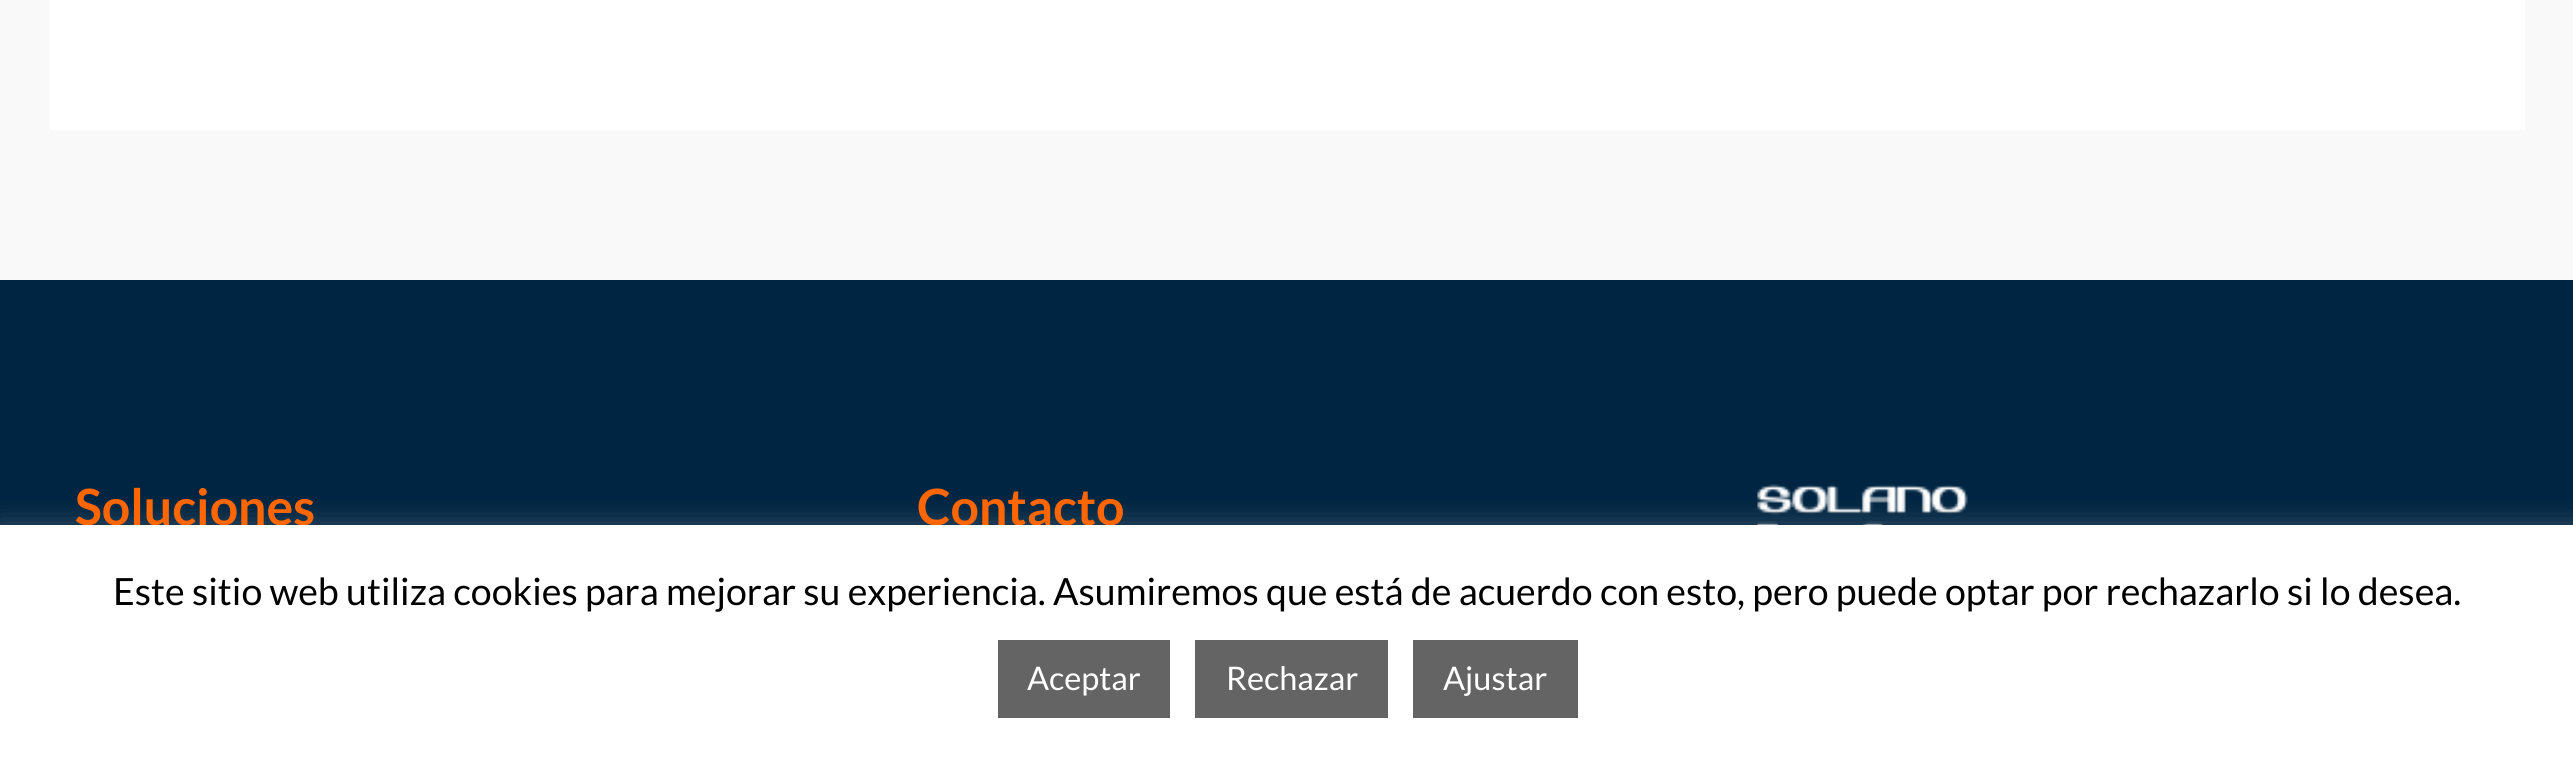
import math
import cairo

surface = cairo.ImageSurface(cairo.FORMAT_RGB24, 2573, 759)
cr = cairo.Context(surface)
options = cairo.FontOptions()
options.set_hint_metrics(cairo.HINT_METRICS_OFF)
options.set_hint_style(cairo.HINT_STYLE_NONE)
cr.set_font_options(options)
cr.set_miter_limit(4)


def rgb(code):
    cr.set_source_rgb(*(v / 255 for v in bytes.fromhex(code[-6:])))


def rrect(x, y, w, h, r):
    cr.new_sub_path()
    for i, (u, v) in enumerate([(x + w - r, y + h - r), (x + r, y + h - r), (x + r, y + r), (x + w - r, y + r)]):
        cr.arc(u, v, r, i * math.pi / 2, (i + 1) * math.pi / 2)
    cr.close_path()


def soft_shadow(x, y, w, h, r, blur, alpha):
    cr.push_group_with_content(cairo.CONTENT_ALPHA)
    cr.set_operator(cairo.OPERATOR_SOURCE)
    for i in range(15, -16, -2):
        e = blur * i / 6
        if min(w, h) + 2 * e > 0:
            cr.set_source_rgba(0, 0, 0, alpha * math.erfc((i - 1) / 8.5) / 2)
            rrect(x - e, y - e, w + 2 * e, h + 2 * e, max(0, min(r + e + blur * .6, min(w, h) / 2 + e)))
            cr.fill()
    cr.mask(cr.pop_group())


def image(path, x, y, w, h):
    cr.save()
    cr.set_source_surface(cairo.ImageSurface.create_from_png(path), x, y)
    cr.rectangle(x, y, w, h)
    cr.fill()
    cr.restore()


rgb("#f9f9f9")
cr.paint()
rgb("#ffffff")
cr.rectangle(50, 0, 2475, 130)
cr.fill()
rgb("#002542")
cr.rectangle(0, 280, 2573, 245)
cr.fill()
image("img/1.png", 1757, 484, 211, 41)
rgb("#acabab")
soft_shadow(0, 523, 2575, 235, 0, 12.5, 0.3)
cr.select_font_face("Lato", cairo.FONT_SLANT_NORMAL, cairo.FONT_WEIGHT_BOLD)
cr.set_font_size(50)
rgb("#ff6600")
cr.move_to(75, 525)
cr.show_text("Soluciones")
cr.move_to(917, 525)
cr.show_text("Contacto")
rgb("#ffffff")
cr.rectangle(0, 525, 2573, 234)
cr.fill()
cr.select_font_face("Lato")
cr.set_font_size(37.5)
rgb("#000000")
cr.move_to(113, 605)
cr.show_text("Este sitio web utiliza cookies para mejorar su experiencia. Asumiremos que está de acuerdo con esto, pero puede optar por rechazarlo si lo desea.")
rgb("#646464")
cr.rectangle(998, 640, 172, 78)
cr.fill()
cr.set_font_size(32.5)
rgb("#ffffff")
cr.move_to(1027, 690)
cr.show_text("Aceptar")
rgb("#646464")
cr.rectangle(1195, 640, 193, 78)
cr.fill()
rgb("#ffffff")
cr.move_to(1226, 690)
cr.show_text("Rechazar")
rgb("#646464")
cr.rectangle(1413, 640, 165, 78)
cr.fill()
rgb("#ffffff")
cr.move_to(1443, 690)
cr.show_text("Ajustar")
surface.write_to_png("page.png")
